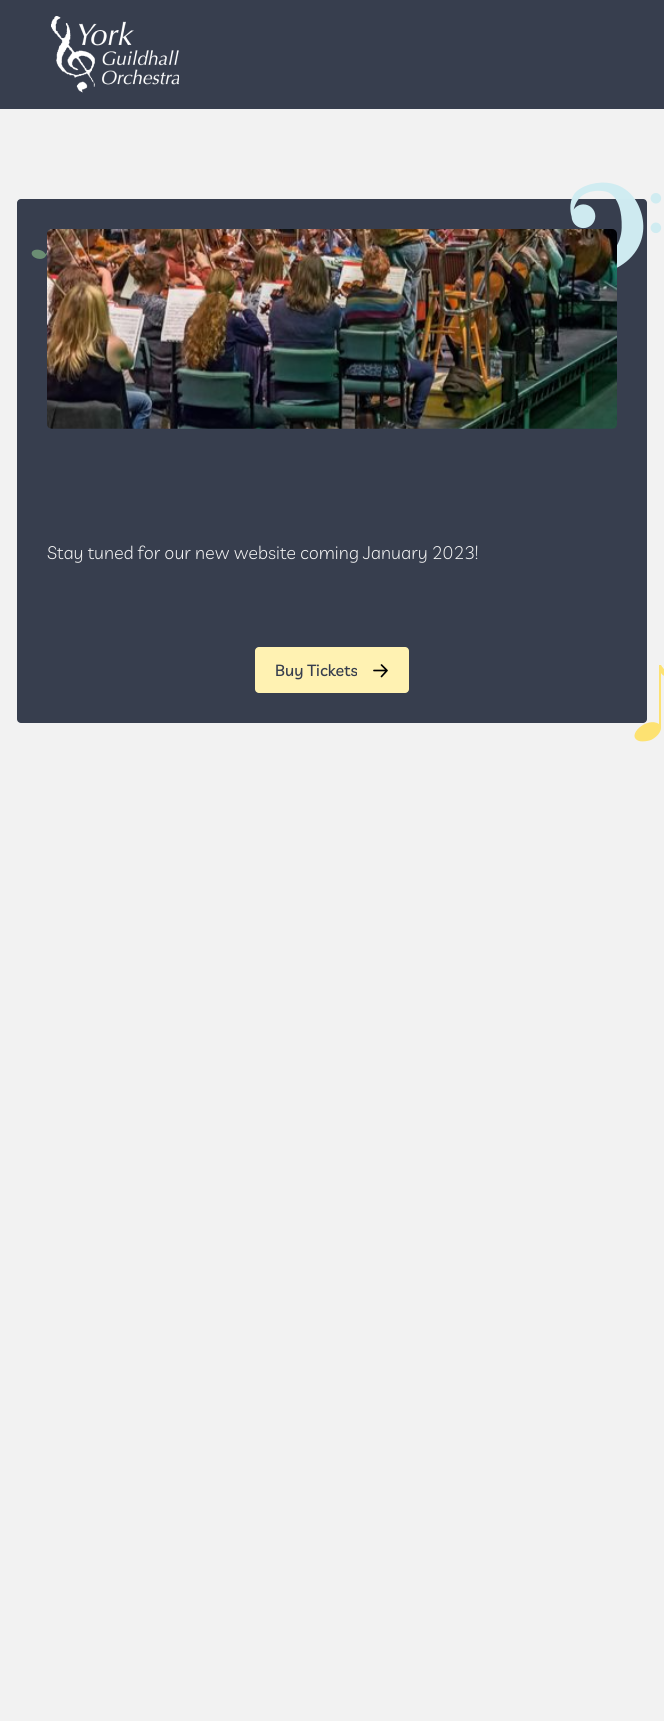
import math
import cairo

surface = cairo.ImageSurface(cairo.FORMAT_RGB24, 664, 1721)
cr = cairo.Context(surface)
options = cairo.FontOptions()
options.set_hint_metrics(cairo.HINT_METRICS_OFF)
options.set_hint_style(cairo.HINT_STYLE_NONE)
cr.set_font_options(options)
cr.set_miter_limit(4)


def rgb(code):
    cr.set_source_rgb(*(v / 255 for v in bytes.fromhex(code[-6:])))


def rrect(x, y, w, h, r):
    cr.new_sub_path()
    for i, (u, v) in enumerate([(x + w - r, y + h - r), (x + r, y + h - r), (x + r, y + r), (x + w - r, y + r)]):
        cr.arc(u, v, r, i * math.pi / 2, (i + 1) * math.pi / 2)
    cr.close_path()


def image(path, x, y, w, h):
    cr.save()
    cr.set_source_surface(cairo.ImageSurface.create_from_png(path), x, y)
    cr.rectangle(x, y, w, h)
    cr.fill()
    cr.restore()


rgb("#f2f2f2")
cr.paint()
rgb("#373e4e")
cr.rectangle(0, 0, 664, 109)
cr.fill()
image("img/1.png", 51, 16, 128, 77)
rrect(17, 199, 630, 524, 4)
cr.fill()
image("img/2.png", 570, 182, 92, 95)
image("img/4.png", 31, 230, 56, 37)
image("img/3.png", 47, 229, 570, 200)
rgb("#fff2b2")
rrect(255, 647, 154, 46, 4)
cr.fill()
cr.new_path()
cr.move_to(374, 670.5)
cr.line_to(387, 670.5)
cr.move_to(387, 670.5)
cr.line_to(381.5, 665)
cr.move_to(387, 670.5)
cr.line_to(381.5, 676.5)
rgb("#000000")
cr.set_line_width(1.7)
cr.set_line_cap(cairo.LINE_CAP_ROUND)
cr.set_line_join(cairo.LINE_JOIN_ROUND)
cr.stroke()
rgb("#fde272")
cr.new_path()
cr.move_to(651, 740)
cr.curve_to(657, 737, 661, 732, 661, 728)
cr.line_to(661, 673)
cr.curve_to(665, 680, 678, 675, 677, 691)
cr.curve_to(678, 681, 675, 675, 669, 673)
cr.curve_to(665, 671, 662, 667, 661, 665)
cr.line_to(659, 665)
cr.line_to(659, 724)
cr.curve_to(647, 716, 625, 736, 639, 741)
cr.curve_to(643, 742, 648, 741, 651, 740)
cr.close_path()
cr.fill()
cr.select_font_face("Livvic Light")
cr.set_font_size(18)
rgb("#f5f5f5")
cr.move_to(47, 559)
cr.show_text("Stay tuned for our new website coming January 2023!")
cr.select_font_face("Livvic Medium")
cr.set_font_size(16)
rgb("#373e4e")
cr.move_to(275, 676)
cr.show_text("Buy Tickets")
surface.write_to_png("page.png")
